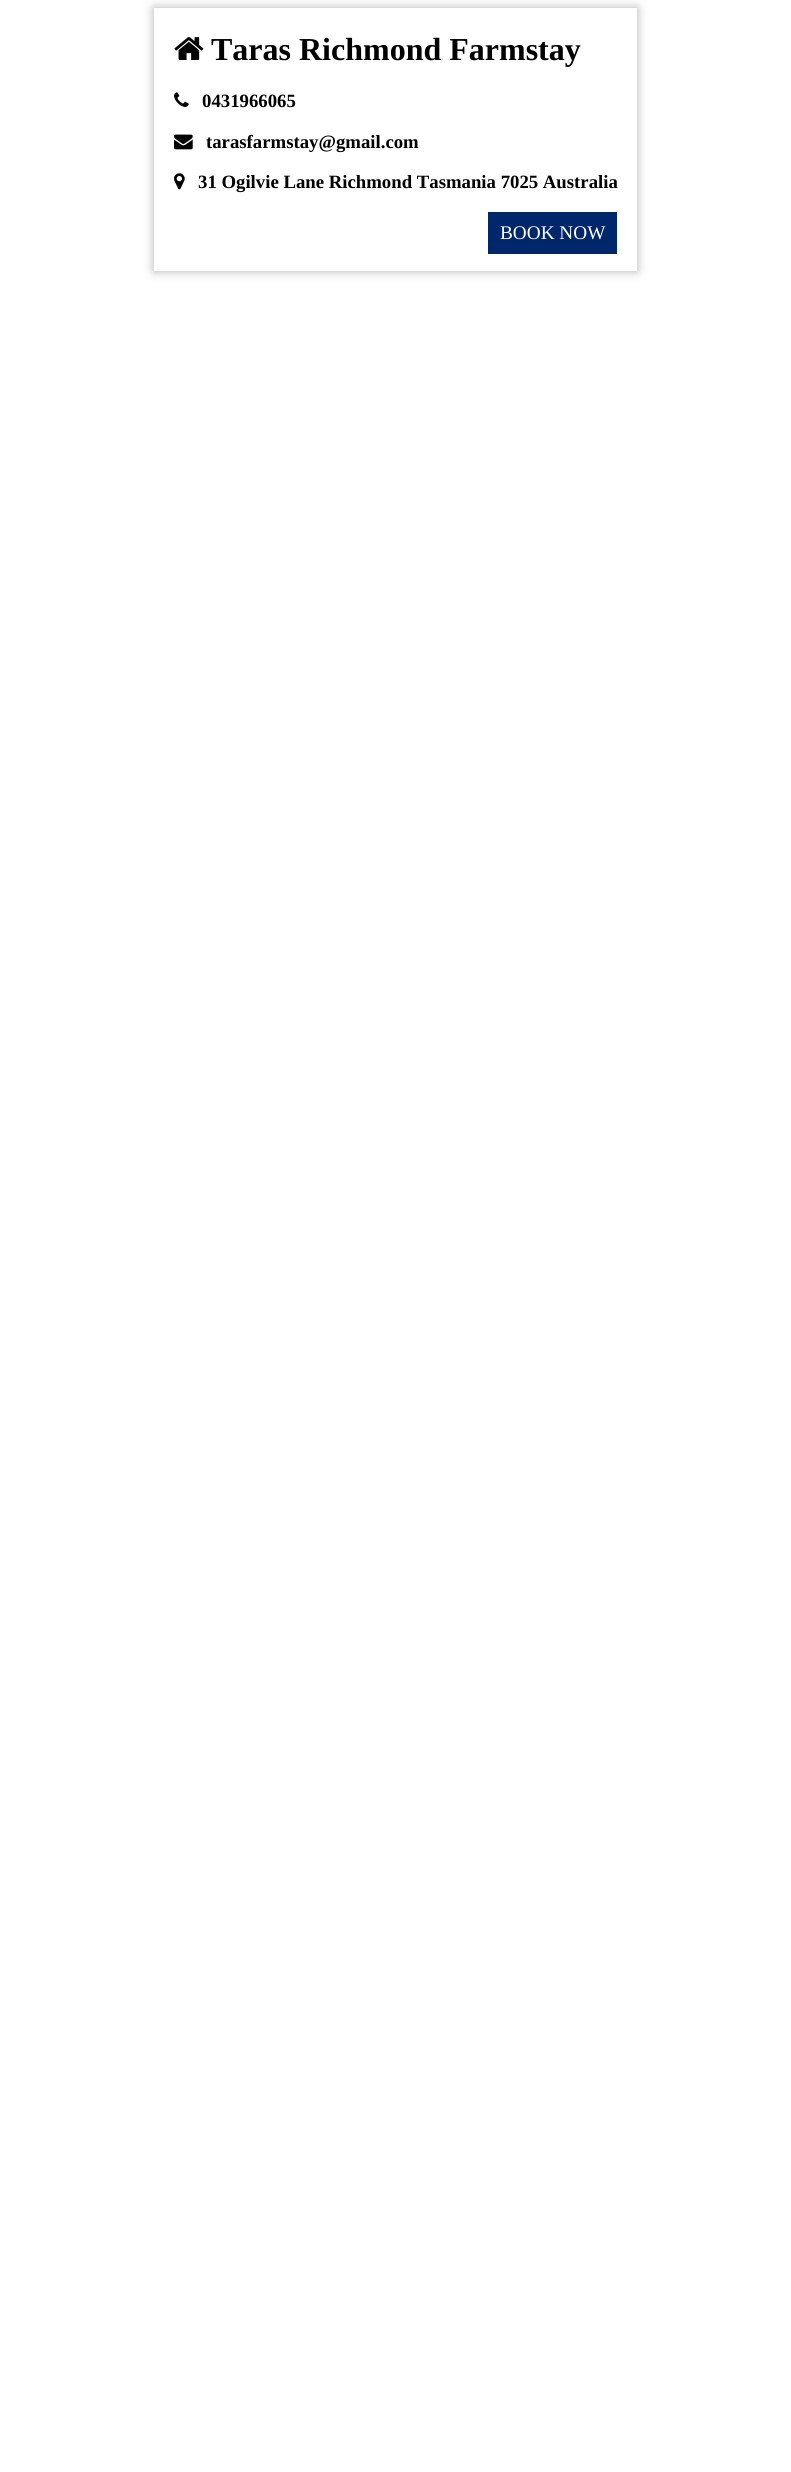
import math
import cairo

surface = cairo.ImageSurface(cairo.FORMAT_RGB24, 791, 2472)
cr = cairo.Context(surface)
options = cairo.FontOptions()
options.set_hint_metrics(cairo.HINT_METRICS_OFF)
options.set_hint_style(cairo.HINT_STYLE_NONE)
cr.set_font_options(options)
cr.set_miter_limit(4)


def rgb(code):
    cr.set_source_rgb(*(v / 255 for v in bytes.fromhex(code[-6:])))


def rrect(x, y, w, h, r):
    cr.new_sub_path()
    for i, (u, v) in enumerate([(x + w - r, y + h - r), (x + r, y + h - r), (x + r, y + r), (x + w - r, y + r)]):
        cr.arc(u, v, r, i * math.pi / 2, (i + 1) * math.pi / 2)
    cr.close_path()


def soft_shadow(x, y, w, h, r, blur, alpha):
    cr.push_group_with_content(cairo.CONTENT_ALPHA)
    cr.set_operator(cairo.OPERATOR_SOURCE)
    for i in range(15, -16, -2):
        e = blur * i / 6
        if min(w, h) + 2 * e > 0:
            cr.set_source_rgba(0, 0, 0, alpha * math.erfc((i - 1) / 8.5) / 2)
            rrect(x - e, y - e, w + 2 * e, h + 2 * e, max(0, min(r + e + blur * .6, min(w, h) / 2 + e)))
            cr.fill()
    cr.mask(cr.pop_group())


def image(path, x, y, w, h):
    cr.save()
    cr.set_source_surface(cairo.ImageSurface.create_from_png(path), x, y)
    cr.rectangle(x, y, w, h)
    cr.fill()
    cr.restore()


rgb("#ffffff")
cr.paint()
cr.save()
cr.set_fill_rule(cairo.FILL_RULE_EVEN_ODD)
cr.new_path()
cr.move_to(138, 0)
cr.line_to(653, 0)
cr.line_to(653, 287)
cr.line_to(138, 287)
cr.close_path()
cr.move_to(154, 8)
cr.line_to(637, 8)
cr.line_to(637, 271)
cr.line_to(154, 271)
cr.close_path()
cr.clip()
rgb("#b1b1b1")
soft_shadow(154, 8, 483, 263, 0, 5, 1)
cr.restore()
image("img/1.png", 174, 37, 30, 23)
image("img/2.png", 174, 92, 15, 15)
image("img/3.png", 174, 134, 19, 16)
image("img/4.png", 174, 173, 11, 17)
rgb("#00276c")
cr.rectangle(488, 212, 129, 42)
cr.fill()
cr.select_font_face("Liberation Serif", cairo.FONT_SLANT_NORMAL, cairo.FONT_WEIGHT_BOLD)
cr.set_font_size(32)
rgb("#000000")
cr.move_to(211, 60)
cr.show_text("Taras Richmond Farmstay")
cr.set_font_size(18.75)
for x, y, s in [
    (202, 107, "0431966065"),
    (206, 148, "tarasfarmstay@gmail.com"),
    (198, 188, "31 Ogilvie Lane Richmond Tasmania 7025 Australia"),
]:
    cr.move_to(x, y)
    cr.show_text(s)
cr.select_font_face("Liberation Serif")
cr.set_font_size(19.25)
rgb("#ffffff")
cr.move_to(500, 239)
cr.show_text("BOOK NOW")
surface.write_to_png("page.png")
